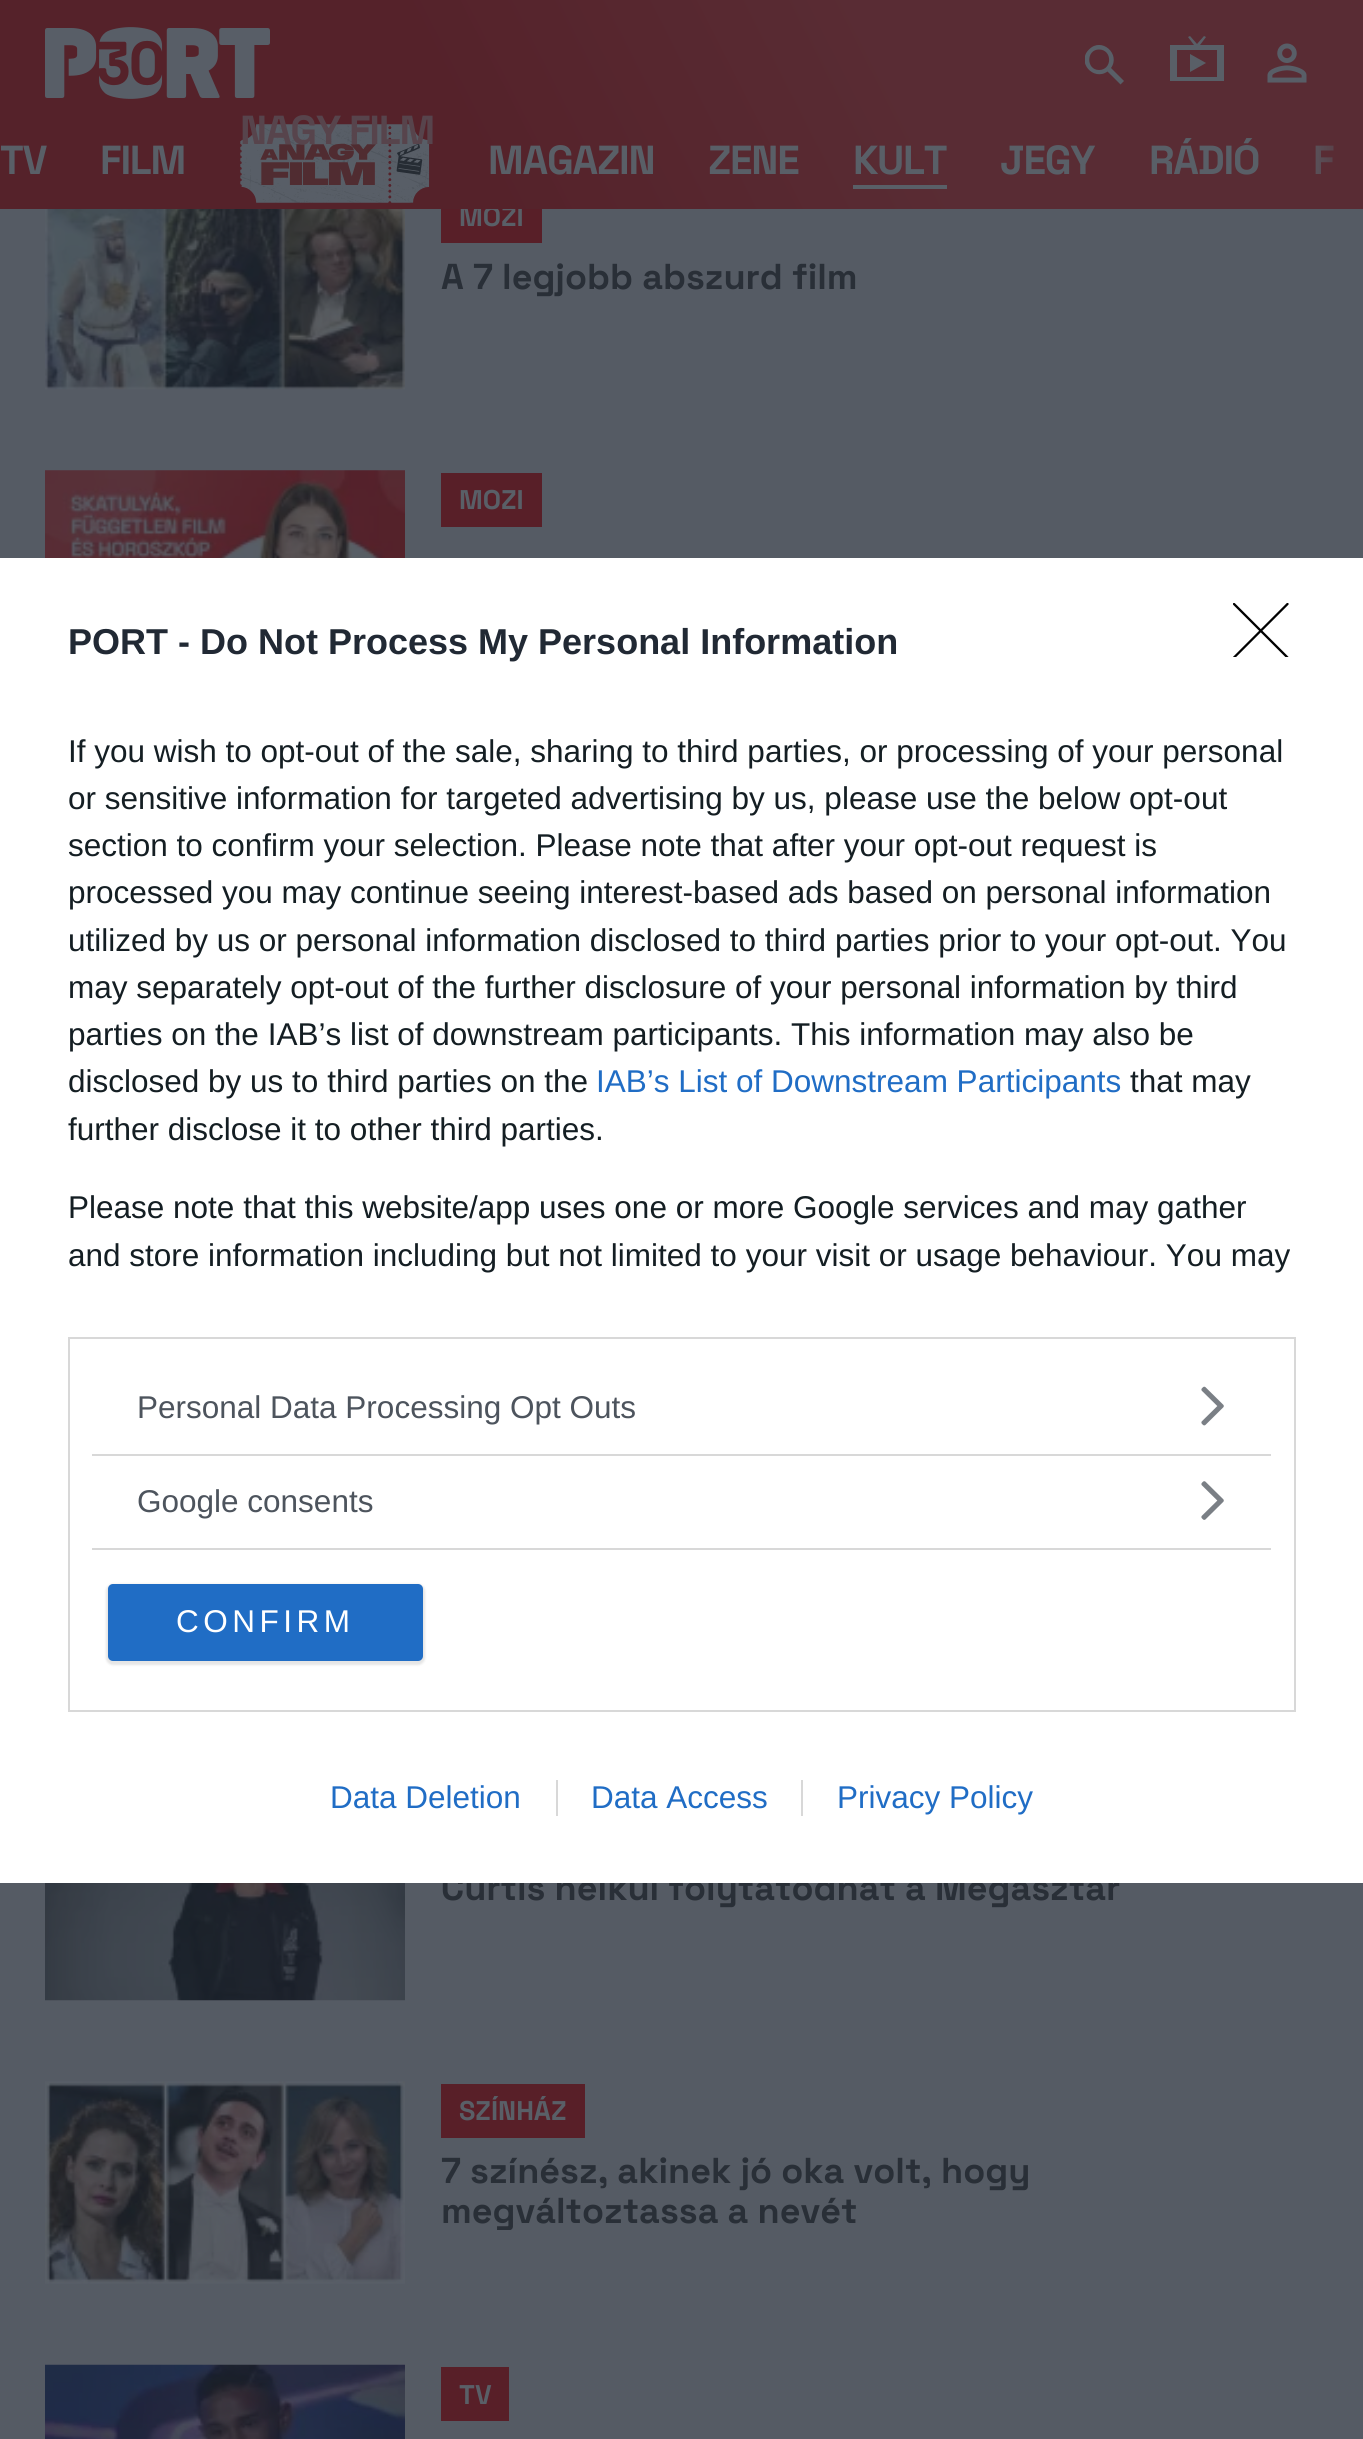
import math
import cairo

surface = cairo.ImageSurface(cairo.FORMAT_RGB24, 1363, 2439)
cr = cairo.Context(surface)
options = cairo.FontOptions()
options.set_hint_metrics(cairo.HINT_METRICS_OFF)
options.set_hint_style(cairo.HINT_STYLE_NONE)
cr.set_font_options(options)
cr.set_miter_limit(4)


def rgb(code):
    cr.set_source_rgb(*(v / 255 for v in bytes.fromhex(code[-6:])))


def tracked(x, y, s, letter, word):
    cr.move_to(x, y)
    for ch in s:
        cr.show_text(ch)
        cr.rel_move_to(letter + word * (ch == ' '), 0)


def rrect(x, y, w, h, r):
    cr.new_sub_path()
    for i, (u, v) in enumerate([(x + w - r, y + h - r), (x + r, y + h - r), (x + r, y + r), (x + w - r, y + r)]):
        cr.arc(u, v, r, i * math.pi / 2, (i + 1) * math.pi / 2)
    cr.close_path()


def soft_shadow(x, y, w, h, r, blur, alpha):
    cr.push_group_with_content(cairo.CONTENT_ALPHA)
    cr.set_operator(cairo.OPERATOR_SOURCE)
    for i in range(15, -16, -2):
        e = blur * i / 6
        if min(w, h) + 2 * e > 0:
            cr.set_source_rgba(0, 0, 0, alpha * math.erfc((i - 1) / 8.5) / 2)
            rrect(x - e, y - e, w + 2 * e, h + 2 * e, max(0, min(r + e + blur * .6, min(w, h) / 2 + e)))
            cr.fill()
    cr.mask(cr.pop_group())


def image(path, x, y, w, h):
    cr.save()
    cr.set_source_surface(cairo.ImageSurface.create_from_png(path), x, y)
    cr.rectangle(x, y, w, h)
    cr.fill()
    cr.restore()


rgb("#555b64")
cr.paint()
image("img/4.png", 45, 209, 360, 181)
rgb("#581f28")
cr.rectangle(441, 209, 101, 34)
cr.fill()
image("img/5.png", 45, 470, 360, 88)
cr.rectangle(441, 473, 101, 54)
cr.fill()
image("img/6.png", 45, 1883, 360, 118)
image("img/7.png", 45, 2081, 360, 203)
cr.rectangle(441, 2084, 144, 54)
cr.fill()
image("img/8.png", 45, 2364, 360, 75)
cr.rectangle(441, 2367, 68, 54)
cr.fill()
cr.select_font_face("Space Grotesk", cairo.FONT_SLANT_NORMAL, cairo.FONT_WEIGHT_BOLD)
cr.set_font_size(27)
rgb("#595f67")
cr.move_to(459, 226)
cr.show_text("MOZI")
gradient = cairo.LinearGradient(1265, -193, 98, 402)
gradient.add_color_stop_rgba(0.34, 0.349, 0.173, 0.204, 1)
gradient.add_color_stop_rgba(0.66, 0.333, 0.133, 0.165, 1)
cr.set_source(gradient)
cr.rectangle(0, 0, 1363, 209)
cr.fill()
rgb("#595f67")
cr.new_path()
cr.move_to(1200, 45)
cr.line_to(1206, 37)
cr.line_to(1204, 36)
cr.line_to(1197, 44)
cr.line_to(1190, 36)
cr.line_to(1188, 37)
cr.line_to(1194, 45)
cr.line_to(1170, 45)
cr.line_to(1170, 81)
cr.line_to(1224, 81)
cr.line_to(1224, 45)
cr.close_path()
cr.move_to(1217, 77)
cr.line_to(1177, 77)
cr.line_to(1177, 50)
cr.line_to(1217, 50)
cr.close_path()
cr.move_to(1190, 72)
cr.line_to(1190, 54)
cr.line_to(1206, 63)
cr.close_path()
cr.fill()
cr.set_font_size(40.5)
tracked(1313, 174, "F", -1.25, 0)
gradient = cairo.LinearGradient(1296, 164, 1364, 164)
gradient.add_color_stop_rgba(0, 0.349, 0.173, 0.204, 0)
gradient.add_color_stop_rgba(1, 0.349, 0.173, 0.204, 1)
cr.set_source(gradient)
cr.rectangle(1315, 145, 19, 29)
cr.fill()
image("img/3.png", 240, 124, 190, 79)
rgb("#57444c")
tracked(240, 144, "NAGY FILM", -1.25, 0)
rgb("#595f67")
for x, y, s in [
    (1149, 174, "RÁDIÓ"),
    (1000, 174, "JEGY"),
    (853, 174, "KULT"),
]:
    tracked(x, y, s, -1.25, 0)
cr.rectangle(853, 185, 94, 4)
cr.fill()
for x, y, s in [
    (708, 174, "ZENE"),
    (488, 174, "MAGAZIN"),
    (100, 174, "FILM"),
    (0, 174, "TV"),
]:
    tracked(x, y, s, -1.25, 0)
image("img/2.png", 1267, 43, 40, 40)
cr.save()
cr.rectangle(1085, 45, 40, 41)
cr.clip()
cr.set_fill_rule(cairo.FILL_RULE_EVEN_ODD)
cr.new_path()
cr.move_to(1111, 68)
cr.line_to(1124, 81)
cr.line_to(1120.5, 84.5)
cr.line_to(1107.5, 71.5)
cr.curve_to(1093.5, 81.5, 1076, 62, 1089, 49.5)
cr.curve_to(1101.5, 36.5, 1121, 54, 1111, 68)
cr.close_path()
cr.move_to(1099, 49.5)
cr.curve_to(1086, 49.5, 1086, 70, 1099, 70)
cr.curve_to(1112.5, 70, 1112.5, 49.5, 1099, 49.5)
cr.close_path()
cr.fill()
cr.restore()
image("img/1.png", 45, 27, 225, 72)
cr.set_font_size(36)
rgb("#292f37")
cr.move_to(441, 289)
cr.show_text("A 7 legjobb abszurd film")
cr.set_font_size(27)
rgb("#595f67")
cr.move_to(459, 509)
cr.show_text("MOZI")
cr.set_font_size(36)
rgb("#292f37")
cr.move_to(441, 1900)
cr.show_text("Curtis nélkül folytatódhat a Megasztár")
cr.set_font_size(27)
rgb("#595f67")
cr.move_to(459, 2120)
cr.show_text("SZÍNHÁZ")
cr.set_font_size(36)
rgb("#292f37")
cr.move_to(441, 2183)
cr.show_text("7 színész, akinek jó oka volt, hogy")
cr.save()
cr.rectangle(441, 2151, 824, 79)
cr.clip()
cr.move_to(441, 2223)
cr.show_text("megváltoztassa a nevét")
cr.restore()
cr.set_font_size(27)
rgb("#595f67")
cr.move_to(459, 2404)
cr.show_text("TV")
rgb("#ffffff")
cr.rectangle(0, 558, 1363, 1325)
cr.fill()
cr.save()
cr.rectangle(1233, 603, 56, 54)
cr.clip()
cr.new_path()
cr.move_to(1234, 604)
cr.line_to(1287.5, 657.5)
cr.move_to(1287.5, 604)
cr.line_to(1234, 657.5)
rgb("#000000")
cr.set_line_width(2.3)
cr.set_line_cap(cairo.LINE_CAP_ROUND)
cr.set_line_join(cairo.LINE_JOIN_ROUND)
cr.stroke()
cr.restore()
cr.select_font_face("Liberation Sans", cairo.FONT_SLANT_NORMAL, cairo.FONT_WEIGHT_BOLD)
cr.set_font_size(36)
rgb("#212934")
cr.move_to(68, 654)
cr.show_text("PORT - Do Not Process My Personal Information")
cr.select_font_face("Liberation Sans")
cr.set_font_size(31.5)
rgb("#141e23")
for x, y, s in [
    (68, 762, "If you wish to opt-out of the sale, sharing to third parties, or processing of your personal"),
    (68, 809, "or sensitive information for targeted advertising by us, please use the below opt-out"),
    (68, 856, "section to confirm your selection. Please note that after your opt-out request is"),
    (68, 903, "processed you may continue seeing interest-based ads based on personal information"),
    (68, 951, "utilized by us or personal information disclosed to third parties prior to your opt-out. You"),
    (68, 998, "may separately opt-out of the further disclosure of your personal information by third"),
    (68, 1045, "parties on the IAB’s list of downstream participants. This information may also be"),
    (68, 1092, "disclosed by us to third parties on the"),
]:
    cr.move_to(x, y)
    cr.show_text(s)
rgb("#206dc5")
cr.move_to(596, 1092)
cr.show_text("IAB’s List of Downstream Participants")
rgb("#141e23")
for x, y, s in [
    (1130, 1092, "that may"),
    (68, 1140, "further disclose it to other third parties."),
    (68, 1218, "Please note that this website/app uses one or more Google services and may gather"),
    (68, 1266, "and store information including but not limited to your visit or usage behaviour. You may"),
]:
    cr.move_to(x, y)
    cr.show_text(s)
cr.rectangle(69, 1338, 1226, 373)
rgb("#d8d8d8")
cr.stroke()
cr.rectangle(92, 1454, 1179, 2)
cr.fill()
rgb("#4d545d")
cr.move_to(137, 1418)
cr.show_text("Personal Data Processing Opt Outs")
image("img/9.png", 1201, 1386, 23, 40)
rgb("#d8d8d8")
cr.rectangle(92, 1548, 1179, 2)
cr.fill()
rgb("#4d545d")
cr.move_to(137, 1512)
cr.show_text("Google consents")
image("img/10.png", 1201, 1481, 23, 39)
rgb("#000000")
soft_shadow(106, 1584, 319, 81, 7, 1, 0.1)
rgb("#206dc5")
rrect(108, 1584, 315, 77, 5)
cr.fill()
rgb("#ffffff")
tracked(176, 1632, "CONFIRM", 4.5, 0)
rgb("#206dc5")
cr.move_to(330, 1808)
cr.show_text("Data Deletion")
cr.move_to(591, 1808)
cr.show_text("Data Access")
rgb("#d8d8d8")
cr.rectangle(556, 1780, 2, 36)
cr.fill()
rgb("#206dc5")
cr.move_to(837, 1808)
cr.show_text("Privacy Policy")
rgb("#d8d8d8")
cr.rectangle(801, 1780, 2, 36)
cr.fill()
surface.write_to_png("page.png")
